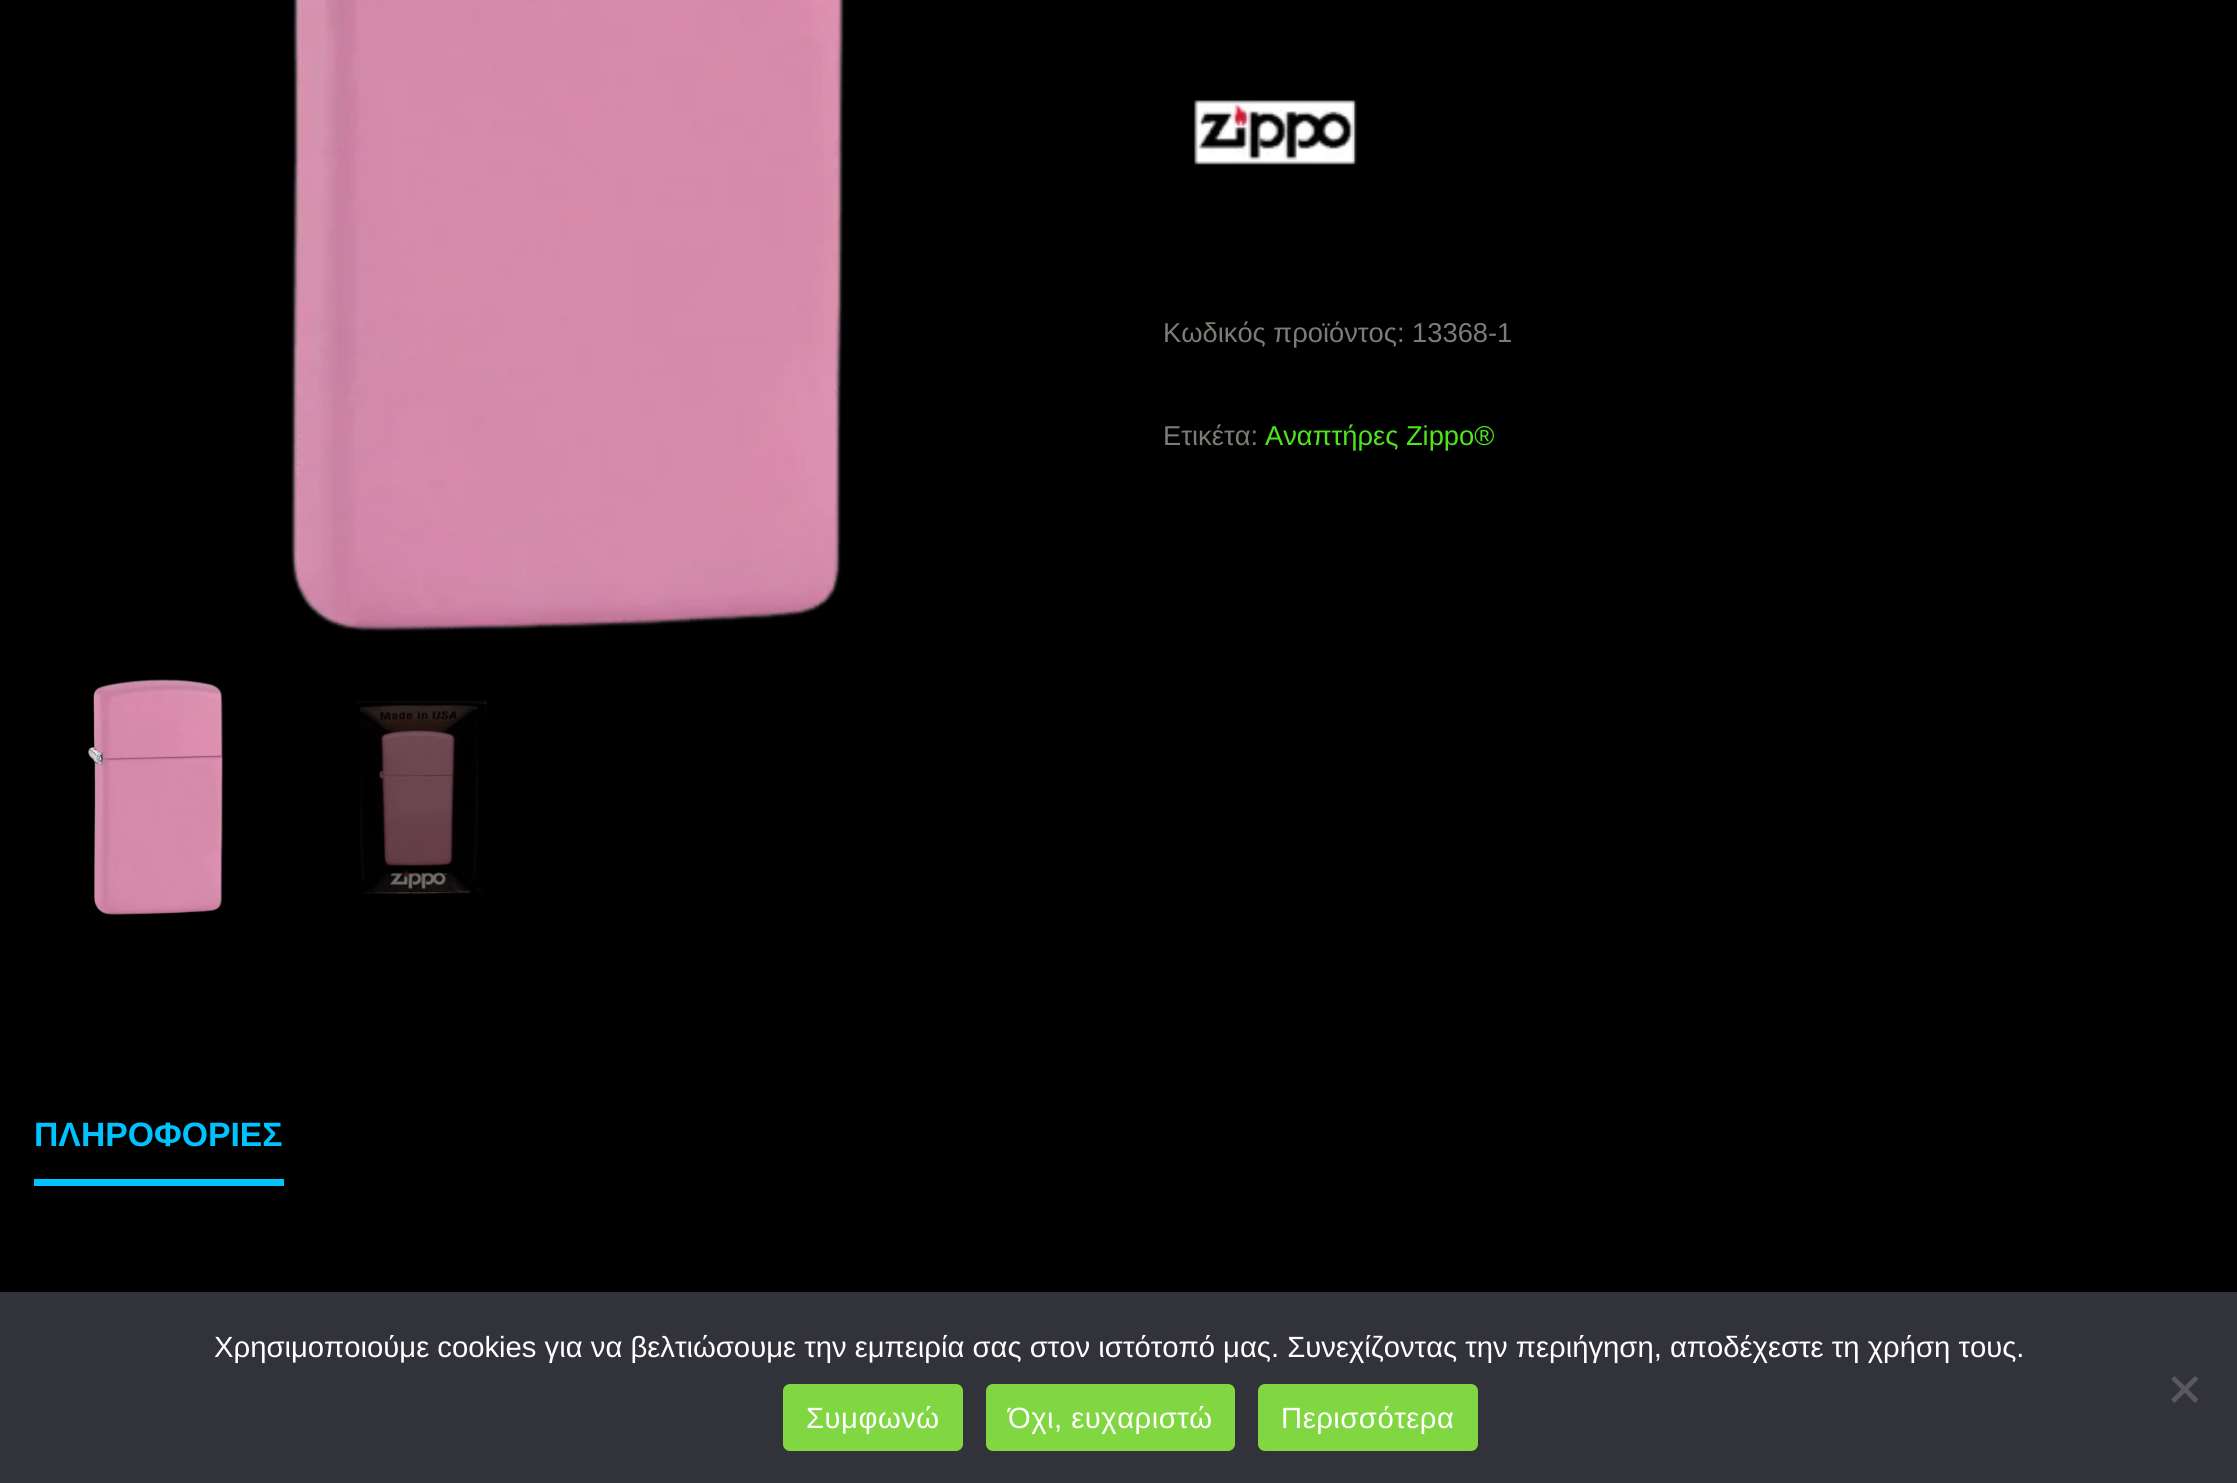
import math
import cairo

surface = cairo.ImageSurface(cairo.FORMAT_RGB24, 2237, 1483)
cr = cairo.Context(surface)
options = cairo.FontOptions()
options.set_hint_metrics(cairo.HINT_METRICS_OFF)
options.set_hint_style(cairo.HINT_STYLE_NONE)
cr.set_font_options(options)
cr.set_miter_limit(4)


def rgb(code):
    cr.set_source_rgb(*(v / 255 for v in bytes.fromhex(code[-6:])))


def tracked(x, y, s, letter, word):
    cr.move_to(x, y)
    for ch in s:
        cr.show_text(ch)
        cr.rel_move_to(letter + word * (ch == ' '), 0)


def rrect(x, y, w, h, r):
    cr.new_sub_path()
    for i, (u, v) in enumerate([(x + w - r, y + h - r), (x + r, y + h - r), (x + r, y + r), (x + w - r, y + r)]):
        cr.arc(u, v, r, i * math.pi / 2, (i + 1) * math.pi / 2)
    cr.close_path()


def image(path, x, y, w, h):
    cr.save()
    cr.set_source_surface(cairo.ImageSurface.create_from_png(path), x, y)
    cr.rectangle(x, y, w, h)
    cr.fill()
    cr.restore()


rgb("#000000")
cr.paint()
image("img/1.png", 291, 0, 554, 632)
image("img/2.png", 88, 679, 135, 236)
image("img/3.png", 357, 700, 130, 194)
image("img/4.png", 1194, 100, 163, 65)
rgb("#00c2ff")
cr.rectangle(34, 1179, 250, 7)
cr.fill()
rgb("#32323a")
cr.rectangle(0, 1292, 2237, 191)
cr.fill()
rgb("#59595d")
cr.new_path()
cr.move_to(2195, 1376)
cr.line_to(2198.5, 1379)
cr.line_to(2174.5, 1403)
cr.line_to(2171, 1399.5)
cr.close_path()
cr.fill()
cr.new_path()
cr.move_to(2171, 1379)
cr.line_to(2174.5, 1376)
cr.line_to(2198.5, 1399.5)
cr.line_to(2195, 1403)
cr.close_path()
cr.fill()
rgb("#81d742")
rrect(783, 1384, 180, 67, 7)
cr.fill()
rrect(986, 1384, 249, 67, 7)
cr.fill()
rrect(1258, 1384, 220, 67, 7)
cr.fill()
cr.select_font_face("Liberation Sans")
cr.set_font_size(27.3)
rgb("#7d7b76")
cr.move_to(1163, 342)
cr.show_text("Κωδικός προϊόντος: 13368-1")
cr.move_to(1163, 445)
cr.show_text("Ετικέτα:")
rgb("#4ee61c")
cr.move_to(1265, 445)
cr.show_text("Αναπτήρες Zippo®")
cr.select_font_face("Liberation Sans", cairo.FONT_SLANT_NORMAL, cairo.FONT_WEIGHT_BOLD)
cr.set_font_size(33.75)
rgb("#00c2ff")
cr.move_to(34, 1146)
cr.show_text("ΠΛΗΡΟΦΟΡΙΕΣ")
cr.select_font_face("Liberation Sans")
cr.set_font_size(29.25)
rgb("#ffffff")
cr.move_to(214, 1357)
cr.show_text("Χρησιμοποιούμε cookies για να βελτιώσουμε την εμπειρία σας στον ιστότοπό μας. Συνεχίζοντας την περιήγηση, αποδέχεστε τη χρήση τους.")
for x, y, s in [
    (806, 1428, "Συμφωνώ"),
    (1008, 1428, "Όχι, ευχαριστώ"),
    (1281, 1428, "Περισσότερα"),
]:
    tracked(x, y, s, 0.5, 0)
surface.write_to_png("page.png")
